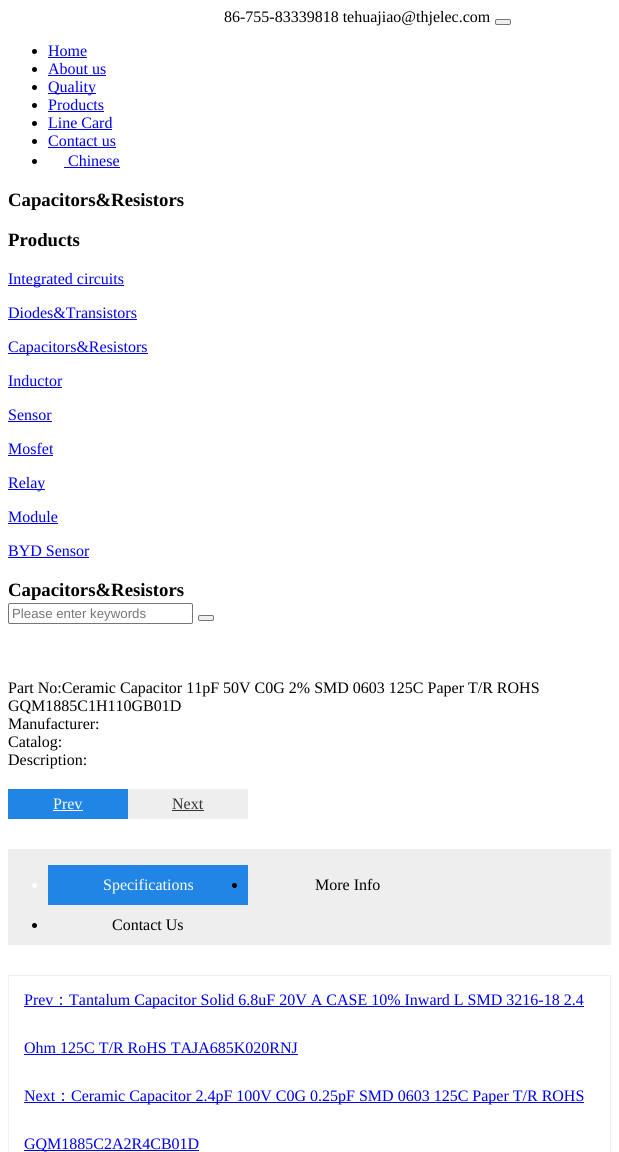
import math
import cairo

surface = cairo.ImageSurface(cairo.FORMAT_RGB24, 619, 1152)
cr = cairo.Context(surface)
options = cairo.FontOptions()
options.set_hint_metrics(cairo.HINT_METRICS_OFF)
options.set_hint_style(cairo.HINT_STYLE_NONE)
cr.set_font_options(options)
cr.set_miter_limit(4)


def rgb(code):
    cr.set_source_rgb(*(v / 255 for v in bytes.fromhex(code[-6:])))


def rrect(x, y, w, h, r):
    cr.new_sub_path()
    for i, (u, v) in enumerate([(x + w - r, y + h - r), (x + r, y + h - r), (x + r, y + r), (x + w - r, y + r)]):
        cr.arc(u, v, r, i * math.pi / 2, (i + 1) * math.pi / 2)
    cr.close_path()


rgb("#ffffff")
cr.paint()
rgb("#efefef")
rrect(495.5, 19.5, 15, 5, 1.5)
cr.fill_preserve()
rgb("#767676")
cr.set_line_width(1)
cr.stroke()
rgb("#000000")
cr.arc(34.5, 51.5, 2.5, 0, 2 * math.pi)
cr.fill()
rgb("#0000ee")
cr.rectangle(48, 57, 39, 1)
cr.fill()
rgb("#000000")
cr.arc(34.5, 69.5, 2.5, 0, 2 * math.pi)
cr.fill()
rgb("#0000ee")
cr.rectangle(48, 75, 58, 1)
cr.fill()
rgb("#000000")
cr.arc(34.5, 87.5, 2.5, 0, 2 * math.pi)
cr.fill()
rgb("#0000ee")
cr.rectangle(48, 93, 48, 1)
cr.fill()
rgb("#000000")
cr.arc(34.5, 105.5, 2.5, 0, 2 * math.pi)
cr.fill()
rgb("#0000ee")
cr.rectangle(48, 111, 56, 1)
cr.fill()
rgb("#000000")
cr.arc(34.5, 123.5, 2.5, 0, 2 * math.pi)
cr.fill()
rgb("#0000ee")
cr.rectangle(48, 129, 64, 1)
cr.fill()
rgb("#000000")
cr.arc(34.5, 141.5, 2.5, 0, 2 * math.pi)
cr.fill()
rgb("#0000ee")
cr.rectangle(48, 147, 68, 1)
cr.fill()
rgb("#000000")
cr.arc(34.5, 161.5, 2.5, 0, 2 * math.pi)
cr.fill()
for x, y, w, h, color in [
    (64, 167, 56, 1, "#0000ee"),
    (8, 285, 116, 1, "#0000ee"),
    (8, 319, 129, 1, "#0000ee"),
    (8, 353, 140, 1, "#0000ee"),
    (8, 387, 54, 1, "#0000ee"),
    (8, 421, 44, 1, "#0000ee"),
    (8, 455, 45, 1, "#0000ee"),
    (8, 489, 37, 1, "#0000ee"),
    (8, 523, 50, 1, "#0000ee"),
    (8, 557, 81, 1, "#0000ee"),
]:
    rgb(color)
    cr.rectangle(x, y, w, h)
    cr.fill()
rrect(8.5, 603.5, 184, 20, 1.5)
rgb("#767676")
cr.stroke()
rgb("#efefef")
rrect(198.5, 615.5, 15, 5, 1.5)
cr.fill_preserve()
rgb("#767676")
cr.stroke()
for x, y, w, h, color in [
    (8, 789, 120, 30, "#2085e4"),
    (53, 810, 30, 1, "#ffffff"),
    (128, 789, 120, 30, "#eeeeee"),
    (172, 810, 32, 1, "#343434"),
    (8, 849, 603, 96, "#eeeeee"),
    (48, 865, 200, 40, "#2085e4"),
]:
    rgb(color)
    cr.rectangle(x, y, w, h)
    cr.fill()
rgb("#ffffff")
cr.arc(34.5, 885.5, 2.5, 0, 2 * math.pi)
cr.fill()
rgb("#000000")
cr.arc(234.5, 885.5, 2.5, 0, 2 * math.pi)
cr.fill()
cr.arc(34.5, 925.5, 2.5, 0, 2 * math.pi)
cr.fill()
cr.rectangle(8.5, 975.5, 602, 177)
rgb("#f0f0f0")
cr.stroke()
for x, y, w, h, color in [
    (24, 1006, 560, 1, "#0000ee"),
    (24, 1054, 274, 1, "#0000ee"),
    (24, 1102, 560, 1, "#0000ee"),
    (24, 1150, 175, 1, "#0000ee"),
]:
    rgb(color)
    cr.rectangle(x, y, w, h)
    cr.fill()
cr.select_font_face("Liberation Serif")
cr.set_font_size(16)
rgb("#000000")
cr.move_to(224, 22)
cr.show_text("86-755-83339818 tehuajiao@thjelec.com")
rgb("#0000ee")
for x, y, s in [
    (48, 56, "Home"),
    (48, 74, "About us"),
    (48, 92, "Quality"),
    (48, 110, "Products"),
    (48, 128, "Line Card"),
    (48, 146, "Contact us"),
    (68, 166, "Chinese"),
]:
    cr.move_to(x, y)
    cr.show_text(s)
cr.select_font_face("Liberation Serif", cairo.FONT_SLANT_NORMAL, cairo.FONT_WEIGHT_BOLD)
cr.set_font_size(18.75)
rgb("#000000")
cr.move_to(8, 206)
cr.show_text("Capacitors&Resistors")
cr.move_to(8, 246)
cr.show_text("Products")
cr.select_font_face("Liberation Serif")
cr.set_font_size(16)
rgb("#0000ee")
for x, y, s in [
    (8, 284, "Integrated circuits"),
    (8, 318, "Diodes&Transistors"),
    (8, 352, "Capacitors&Resistors"),
    (8, 386, "Inductor"),
    (8, 420, "Sensor"),
    (8, 454, "Mosfet"),
    (8, 488, "Relay"),
    (8, 522, "Module"),
    (8, 556, "BYD Sensor"),
]:
    cr.move_to(x, y)
    cr.show_text(s)
cr.select_font_face("Liberation Serif", cairo.FONT_SLANT_NORMAL, cairo.FONT_WEIGHT_BOLD)
cr.set_font_size(18.75)
rgb("#000000")
cr.move_to(8, 596)
cr.show_text("Capacitors&Resistors")
cr.select_font_face("Liberation Sans")
cr.set_font_size(13.25)
rgb("#757575")
cr.move_to(12, 618)
cr.show_text("Please enter keywords")
cr.select_font_face("Liberation Serif")
cr.set_font_size(16)
rgb("#000000")
for x, y, s in [
    (8, 693, "Part No:Ceramic Capacitor 11pF 50V C0G 2% SMD 0603 125C Paper T/R ROHS"),
    (8, 711, "GQM1885C1H110GB01D"),
    (8, 729, "Manufacturer:"),
    (8, 747, "Catalog:"),
    (8, 765, "Description:"),
]:
    cr.move_to(x, y)
    cr.show_text(s)
rgb("#ffffff")
cr.move_to(53, 809)
cr.show_text("Prev")
rgb("#343434")
cr.move_to(172, 809)
cr.show_text("Next")
rgb("#ffffff")
cr.move_to(103, 890)
cr.show_text("Specifications")
rgb("#000000")
cr.move_to(315, 890)
cr.show_text("More Info")
cr.move_to(112, 930)
cr.show_text("Contact Us")
rgb("#0000ee")
cr.move_to(24, 1005)
cr.show_text("Prev")
cr.select_font_face("WenQuanYi Zen Hei Medium")
cr.move_to(53, 1005)
cr.show_text("：")
cr.select_font_face("Liberation Serif")
for x, y, s in [
    (69, 1005, "Tantalum Capacitor Solid 6.8uF 20V A CASE 10% Inward L SMD 3216-18 2.4"),
    (24, 1053, "Ohm 125C T/R RoHS TAJA685K020RNJ"),
    (24, 1101, "Next"),
]:
    cr.move_to(x, y)
    cr.show_text(s)
cr.select_font_face("WenQuanYi Zen Hei Medium")
cr.move_to(55, 1101)
cr.show_text("：")
cr.select_font_face("Liberation Serif")
cr.move_to(71, 1101)
cr.show_text("Ceramic Capacitor 2.4pF 100V C0G 0.25pF SMD 0603 125C Paper T/R ROHS")
cr.move_to(24, 1149)
cr.show_text("GQM1885C2A2R4CB01D")
surface.write_to_png("page.png")
